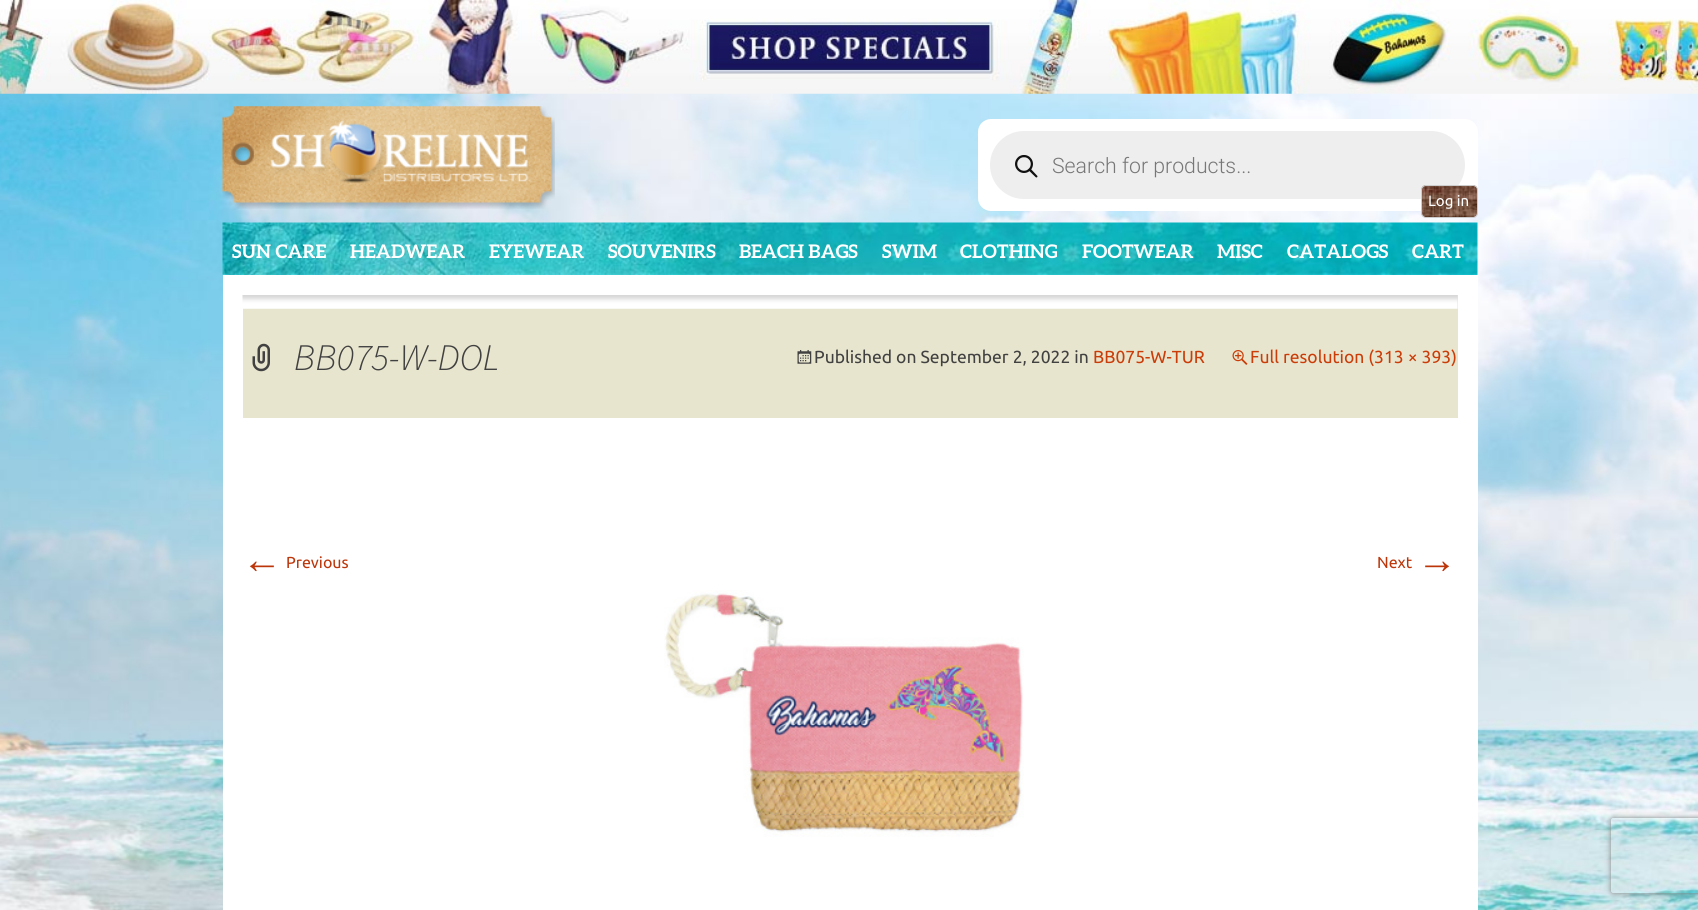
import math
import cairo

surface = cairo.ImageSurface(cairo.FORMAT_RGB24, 1698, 910)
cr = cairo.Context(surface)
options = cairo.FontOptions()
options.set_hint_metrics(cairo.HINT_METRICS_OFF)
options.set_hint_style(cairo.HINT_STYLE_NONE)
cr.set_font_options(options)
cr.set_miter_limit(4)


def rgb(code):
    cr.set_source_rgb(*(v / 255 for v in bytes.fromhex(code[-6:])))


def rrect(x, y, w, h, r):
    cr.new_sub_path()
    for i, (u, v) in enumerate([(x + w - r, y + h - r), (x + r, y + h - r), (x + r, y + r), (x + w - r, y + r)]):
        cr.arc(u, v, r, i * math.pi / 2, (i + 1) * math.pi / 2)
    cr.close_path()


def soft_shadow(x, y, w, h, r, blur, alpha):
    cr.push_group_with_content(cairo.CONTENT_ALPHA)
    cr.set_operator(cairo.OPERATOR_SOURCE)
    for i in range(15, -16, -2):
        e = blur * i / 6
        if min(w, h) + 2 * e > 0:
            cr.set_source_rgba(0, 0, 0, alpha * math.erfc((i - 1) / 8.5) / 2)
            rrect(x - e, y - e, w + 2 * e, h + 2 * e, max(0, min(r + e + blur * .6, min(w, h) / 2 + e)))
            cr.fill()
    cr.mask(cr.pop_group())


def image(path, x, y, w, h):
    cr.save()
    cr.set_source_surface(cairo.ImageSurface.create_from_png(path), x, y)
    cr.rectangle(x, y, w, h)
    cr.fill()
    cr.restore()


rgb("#ffffff")
cr.paint()
image("img/1.png", 0, 93, 1698, 817)
image("img/2.png", 0, 0, 1698, 94)
image("img/3.png", 222, 106, 333, 103)
rgb("#ffffff")
rrect(978, 119, 500, 92, 13)
cr.fill()
rgb("#eeeeee")
rrect(990, 131, 475, 68, 34)
cr.fill()
image("img/4.png", 1015, 155, 23, 23)
image("img/5.png", 1421, 185, 57, 33)
rrect(1421.5, 185.5, 56, 32, 4.5)
rgb("#cccccc")
cr.set_line_width(1)
cr.stroke()
image("img/6.png", 222, 222, 1256, 53)
rgb("#ffffff")
cr.rectangle(223, 275, 1255, 635)
cr.fill()
rgb("#e8e5ce")
cr.rectangle(243, 295, 1215, 123)
cr.fill()
image("img/7.png", 242, 295, 1216, 14)
image("img/8.png", 252, 343, 18, 29)
image("img/9.png", 797, 350, 15, 14)
image("img/10.png", 1232, 350, 16, 15)
image("img/11.png", 664, 590, 360, 247)
cr.save()
cr.set_fill_rule(cairo.FILL_RULE_EVEN_ODD)
cr.new_path()
cr.move_to(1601, 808)
cr.line_to(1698, 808)
cr.line_to(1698, 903)
cr.line_to(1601, 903)
cr.close_path()
cr.move_to(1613.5, 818)
cr.line_to(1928.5, 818)
cr.curve_to(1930, 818, 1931, 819, 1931, 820.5)
cr.line_to(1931, 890.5)
cr.curve_to(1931, 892, 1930, 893, 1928.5, 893)
cr.line_to(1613.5, 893)
cr.curve_to(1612, 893, 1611, 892, 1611, 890.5)
cr.line_to(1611, 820.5)
cr.curve_to(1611, 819, 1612, 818, 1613.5, 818)
cr.close_path()
cr.clip()
rgb("#808080")
soft_shadow(1611, 818, 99, 75, 2.5, 3, 1)
cr.restore()
cr.select_font_face("Roboto Light")
cr.set_font_size(21.25)
rgb("#777777")
cr.move_to(1052, 173)
cr.show_text("Search for products...")
cr.select_font_face("Ubuntu")
cr.set_font_size(15)
rgb("#ffffff")
cr.move_to(1428, 206)
cr.show_text("Log in")
cr.select_font_face("Aleo", cairo.FONT_SLANT_NORMAL, cairo.FONT_WEIGHT_BOLD)
cr.set_font_size(18.75)
for x, y, s in [
    (232, 258, "SUN CARE"),
    (350, 258, "HEADWEAR"),
    (489, 258, "EYEWEAR"),
    (608, 258, "SOUVENIRS"),
    (739, 258, "BEACH BAGS"),
    (882, 258, "SWIM"),
    (960, 258, "CLOTHING"),
    (1082, 258, "FOOTWEAR"),
    (1217, 258, "MISC"),
    (1287, 258, "CATALOGS"),
    (1412, 258, "CART"),
]:
    cr.move_to(x, y)
    cr.show_text(s)
cr.select_font_face("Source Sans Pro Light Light", cairo.FONT_SLANT_ITALIC)
cr.set_font_size(37.5)
rgb("#414141")
cr.move_to(294, 370)
cr.show_text("BB075-W-DOL")
cr.select_font_face("Ubuntu")
cr.set_font_size(17.5)
cr.move_to(814, 363)
cr.show_text("Published on September 2, 2022 in")
rgb("#ca3c08")
cr.move_to(1093, 363)
cr.show_text("BB075-W-TUR")
cr.move_to(1250, 363)
cr.show_text("Full resolution (313 × 393)")
cr.select_font_face("Liberation Serif")
cr.set_font_size(40)
rgb("#bc360a")
cr.move_to(242, 573)
cr.show_text("←")
cr.select_font_face("Ubuntu")
cr.set_font_size(16)
cr.move_to(286, 568)
cr.show_text("Previous")
cr.move_to(1377, 568)
cr.show_text("Next")
cr.select_font_face("Liberation Serif")
cr.set_font_size(40)
cr.move_to(1417, 573)
cr.show_text("→")
surface.write_to_png("page.png")
